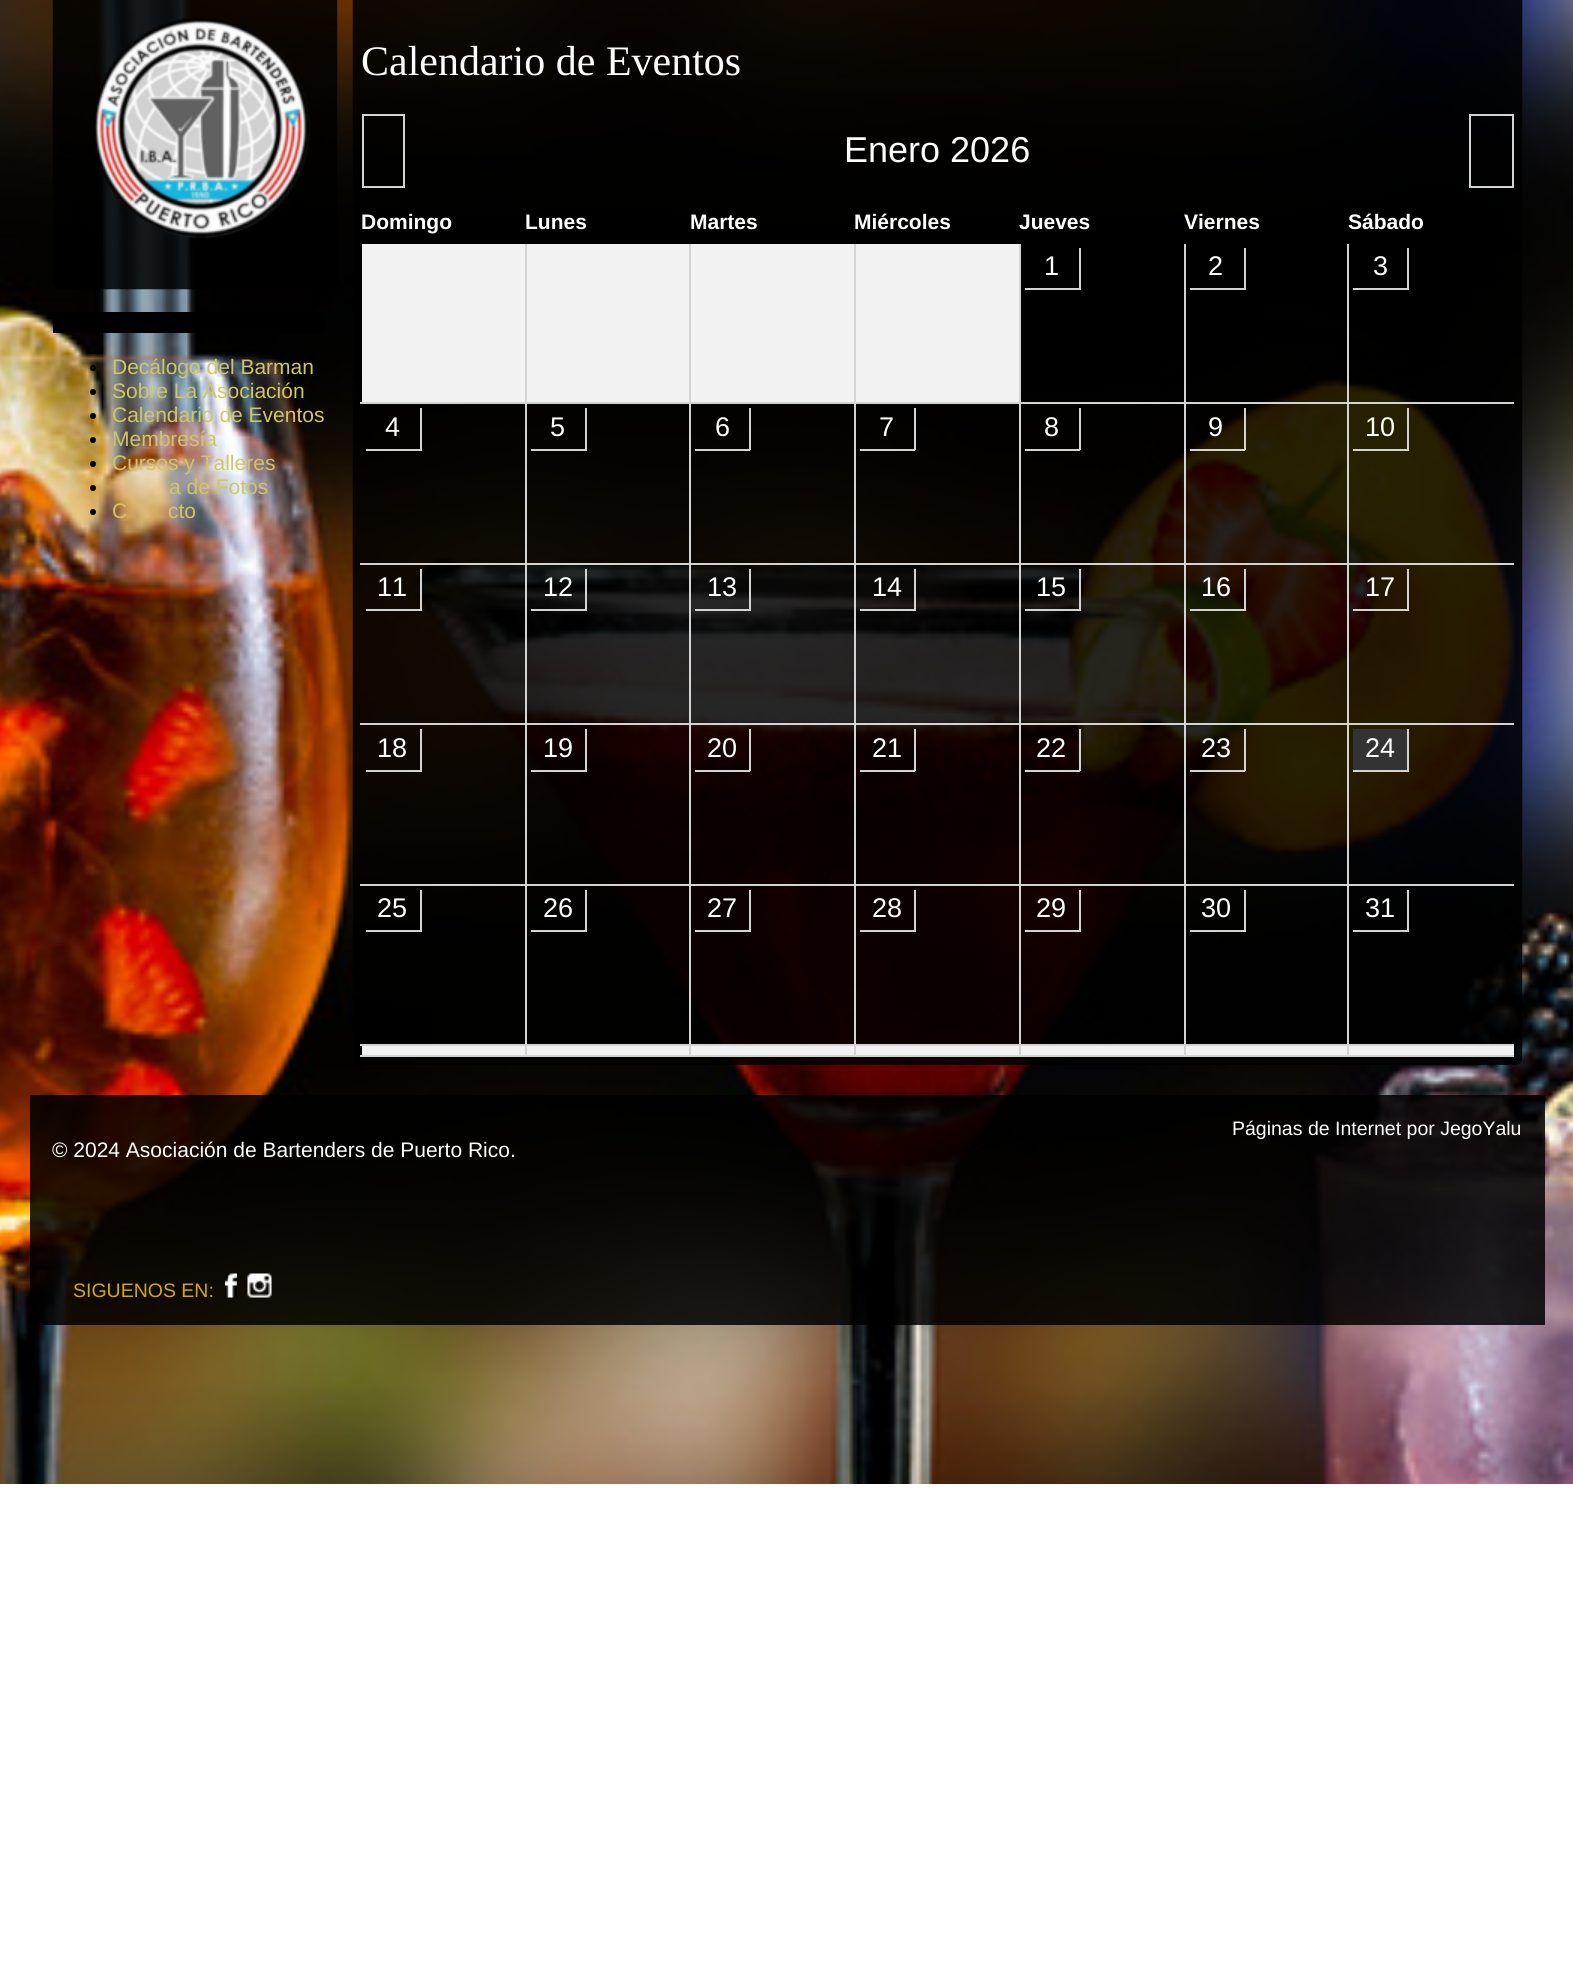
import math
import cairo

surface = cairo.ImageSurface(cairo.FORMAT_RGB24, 1573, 1977)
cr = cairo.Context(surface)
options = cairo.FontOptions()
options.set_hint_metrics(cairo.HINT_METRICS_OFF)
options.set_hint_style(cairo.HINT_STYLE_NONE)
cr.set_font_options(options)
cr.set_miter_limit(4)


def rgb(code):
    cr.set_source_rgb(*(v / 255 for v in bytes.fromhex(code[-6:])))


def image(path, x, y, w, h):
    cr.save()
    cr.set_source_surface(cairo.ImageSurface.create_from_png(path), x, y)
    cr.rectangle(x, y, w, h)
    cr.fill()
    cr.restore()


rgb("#ffffff")
cr.paint()
image("img/1.png", 0, 0, 1573, 1484)
image("img/2.png", 52, 0, 286, 290)
image("img/3.png", 94, 18, 216, 221)
rgb("#000000")
cr.rectangle(53, 312, 272, 21)
cr.fill()
cr.arc(93, 368, 3, 0, 2 * math.pi)
cr.fill()
cr.arc(93, 392, 3, 0, 2 * math.pi)
cr.fill()
cr.arc(93, 416, 3, 0, 2 * math.pi)
cr.fill()
cr.arc(93, 440, 3, 0, 2 * math.pi)
cr.fill()
cr.arc(93, 464, 3, 0, 2 * math.pi)
cr.fill()
cr.arc(93, 488, 3, 0, 2 * math.pi)
cr.fill()
cr.arc(93, 512, 3, 0, 2 * math.pi)
cr.fill()
image("img/4.png", 352, 0, 1171, 1065)
cr.rectangle(363, 115, 41, 72)
rgb("#d3d3d3")
cr.stroke()
cr.rectangle(1470, 115, 43, 72)
cr.stroke()
cr.rectangle(1347, 1055, 167, 2)
cr.rectangle(1347, 1044, 2, 12)
cr.rectangle(1347, 1044, 167, 2)
cr.rectangle(1347, 884, 2, 162)
cr.rectangle(1347, 884, 167, 2)
cr.rectangle(1347, 723, 2, 162)
cr.rectangle(1347, 723, 167, 2)
cr.rectangle(1347, 563, 2, 162)
cr.rectangle(1347, 563, 167, 2)
cr.rectangle(1347, 402, 2, 162)
cr.rectangle(1347, 402, 167, 2)
cr.rectangle(1347, 242, 2, 162)
cr.rectangle(1184, 1055, 165, 2)
cr.rectangle(1184, 1044, 2, 12)
cr.rectangle(1184, 1044, 165, 2)
cr.rectangle(1184, 884, 2, 162)
cr.rectangle(1184, 884, 165, 2)
cr.rectangle(1184, 723, 2, 162)
cr.rectangle(1184, 723, 165, 2)
cr.rectangle(1184, 563, 2, 162)
cr.rectangle(1184, 563, 165, 2)
cr.rectangle(1184, 402, 2, 162)
cr.rectangle(1184, 402, 165, 2)
cr.rectangle(1184, 242, 2, 162)
cr.rectangle(1019, 1055, 166, 2)
cr.rectangle(1019, 1044, 2, 12)
cr.rectangle(1019, 1044, 166, 2)
cr.rectangle(1019, 884, 2, 162)
cr.rectangle(1019, 884, 166, 2)
cr.rectangle(1019, 723, 2, 162)
cr.rectangle(1019, 723, 166, 2)
cr.rectangle(1019, 563, 2, 162)
cr.rectangle(1019, 563, 166, 2)
cr.rectangle(1019, 402, 2, 162)
cr.rectangle(1019, 402, 166, 2)
cr.rectangle(1019, 242, 2, 162)
cr.rectangle(854, 1055, 166, 2)
cr.rectangle(854, 1044, 2, 12)
cr.rectangle(854, 1044, 166, 2)
cr.rectangle(854, 884, 2, 162)
cr.rectangle(854, 884, 166, 2)
cr.rectangle(854, 723, 2, 162)
cr.rectangle(854, 723, 166, 2)
cr.rectangle(854, 563, 2, 162)
cr.rectangle(854, 563, 166, 2)
cr.rectangle(854, 402, 2, 162)
cr.rectangle(854, 402, 166, 2)
cr.rectangle(854, 242, 2, 162)
cr.rectangle(689, 1055, 166, 2)
cr.rectangle(689, 1044, 2, 12)
cr.rectangle(689, 1044, 166, 2)
cr.rectangle(689, 884, 2, 162)
cr.rectangle(689, 884, 166, 2)
cr.rectangle(689, 723, 2, 162)
cr.rectangle(689, 723, 166, 2)
cr.rectangle(689, 563, 2, 162)
cr.rectangle(689, 563, 166, 2)
cr.rectangle(689, 402, 2, 162)
cr.rectangle(689, 402, 166, 2)
cr.rectangle(689, 242, 2, 162)
cr.rectangle(525, 1055, 165, 2)
cr.rectangle(525, 1044, 2, 12)
cr.rectangle(525, 1044, 165, 2)
cr.rectangle(525, 884, 2, 162)
cr.rectangle(525, 884, 165, 2)
cr.rectangle(525, 723, 2, 162)
cr.rectangle(525, 723, 165, 2)
cr.rectangle(525, 563, 2, 162)
cr.rectangle(525, 563, 165, 2)
cr.rectangle(525, 402, 2, 162)
cr.rectangle(525, 402, 165, 2)
cr.rectangle(525, 242, 2, 162)
cr.fill()
rgb("#000000")
cr.rectangle(525, 242, 2, 2)
cr.rectangle(689, 242, 2, 2)
cr.rectangle(854, 242, 2, 2)
cr.rectangle(1019, 242, 2, 2)
cr.rectangle(1184, 242, 2, 2)
cr.rectangle(1347, 242, 2, 2)
cr.fill()
rgb("#f2f2f2")
cr.rectangle(362, 244, 163, 158)
cr.fill()
rgb("#d3d3d3")
cr.rectangle(360, 402, 167, 2)
cr.fill()
rgb("#f2f2f2")
cr.rectangle(527, 244, 162, 158)
cr.rectangle(691, 244, 163, 158)
cr.rectangle(856, 244, 163, 158)
cr.fill()
rgb("#d3d3d3")
cr.rectangle(1079, 248, 2, 42)
cr.rectangle(1025, 288, 55, 2)
cr.rectangle(1244, 248, 2, 42)
cr.rectangle(1190, 288, 55, 2)
cr.rectangle(1407, 248, 2, 42)
cr.rectangle(1353, 288, 56, 2)
cr.rectangle(360, 563, 167, 2)
cr.rectangle(420, 408, 2, 42)
cr.rectangle(366, 449, 56, 2)
cr.rectangle(585, 408, 2, 42)
cr.rectangle(531, 449, 56, 2)
cr.rectangle(749, 408, 2, 42)
cr.rectangle(695, 449, 55, 2)
cr.rectangle(914, 408, 2, 42)
cr.rectangle(860, 449, 55, 2)
cr.rectangle(1079, 408, 2, 42)
cr.rectangle(1025, 449, 55, 2)
cr.rectangle(1244, 408, 2, 42)
cr.rectangle(1190, 449, 55, 2)
cr.rectangle(1407, 408, 2, 42)
cr.rectangle(1353, 449, 56, 2)
cr.rectangle(360, 723, 167, 2)
cr.rectangle(420, 569, 2, 42)
cr.rectangle(366, 609, 56, 2)
cr.rectangle(585, 569, 2, 42)
cr.rectangle(531, 609, 56, 2)
cr.rectangle(749, 569, 2, 42)
cr.rectangle(695, 609, 55, 2)
cr.rectangle(914, 569, 2, 42)
cr.rectangle(860, 609, 55, 2)
cr.rectangle(1079, 569, 2, 42)
cr.rectangle(1025, 609, 55, 2)
cr.rectangle(1244, 569, 2, 42)
cr.rectangle(1190, 609, 55, 2)
cr.rectangle(1407, 569, 2, 42)
cr.rectangle(1353, 609, 56, 2)
cr.rectangle(360, 884, 167, 2)
cr.rectangle(420, 729, 2, 42)
cr.rectangle(366, 770, 56, 2)
cr.rectangle(585, 729, 2, 42)
cr.rectangle(531, 770, 56, 2)
cr.rectangle(749, 729, 2, 42)
cr.rectangle(695, 770, 55, 2)
cr.rectangle(914, 729, 2, 42)
cr.rectangle(860, 770, 55, 2)
cr.rectangle(1079, 729, 2, 42)
cr.rectangle(1025, 770, 55, 2)
cr.rectangle(1244, 729, 2, 42)
cr.rectangle(1190, 770, 55, 2)
cr.fill()
rgb("#333333")
cr.rectangle(1353, 729, 54, 41)
cr.fill()
rgb("#d3d3d3")
cr.rectangle(1407, 729, 2, 42)
cr.rectangle(1353, 770, 56, 2)
cr.rectangle(360, 1044, 167, 2)
cr.rectangle(420, 890, 2, 42)
cr.rectangle(366, 930, 56, 2)
cr.rectangle(585, 890, 2, 42)
cr.rectangle(531, 930, 56, 2)
cr.rectangle(749, 890, 2, 42)
cr.rectangle(695, 930, 55, 2)
cr.rectangle(914, 890, 2, 42)
cr.rectangle(860, 930, 55, 2)
cr.rectangle(1079, 890, 2, 42)
cr.rectangle(1025, 930, 55, 2)
cr.rectangle(1244, 890, 2, 42)
cr.rectangle(1190, 930, 55, 2)
cr.rectangle(1407, 890, 2, 42)
cr.rectangle(1353, 930, 56, 2)
cr.fill()
rgb("#f2f2f2")
cr.rectangle(362, 1046, 163, 9)
cr.fill()
rgb("#d3d3d3")
cr.rectangle(360, 1055, 167, 2)
cr.fill()
rgb("#f2f2f2")
cr.rectangle(527, 1046, 162, 9)
cr.rectangle(691, 1046, 163, 9)
cr.rectangle(856, 1046, 163, 9)
cr.rectangle(1021, 1046, 163, 9)
cr.rectangle(1186, 1046, 161, 9)
cr.rectangle(1349, 1046, 165, 9)
cr.fill()
cr.set_source_rgba(0, 0, 0, 0.85)
cr.rectangle(30, 1095, 1515, 230)
cr.fill()
image("img/5.png", 225, 1273, 12, 25)
image("img/6.png", 247, 1273, 25, 25)
cr.select_font_face("Liberation Sans")
cr.set_font_size(21)
rgb("#d0c667")
for x, y, s in [
    (112, 374, "Decálogo del Barman"),
    (112, 398, "Sobre La Asociación"),
    (112, 422, "Calendario de Eventos"),
    (112, 446, "Membresía"),
    (112, 470, "Cursos y Talleres"),
    (169, 494, "a de Fotos"),
    (112, 518, "C"),
    (168, 518, "cto"),
]:
    cr.move_to(x, y)
    cr.show_text(s)
cr.select_font_face("Liberation Serif")
cr.set_font_size(42)
rgb("#ffffff")
cr.move_to(361, 75)
cr.show_text("Calendario de Eventos")
cr.select_font_face("Liberation Sans")
cr.set_font_size(36)
cr.move_to(844, 162)
cr.show_text("Enero 2026")
cr.select_font_face("Liberation Sans", cairo.FONT_SLANT_NORMAL, cairo.FONT_WEIGHT_BOLD)
cr.set_font_size(21)
for x, y, s in [
    (361, 229, "Domingo"),
    (525, 229, "Lunes"),
    (690, 229, "Martes"),
    (854, 229, "Miércoles"),
    (1019, 229, "Jueves"),
    (1184, 229, "Viernes"),
    (1348, 229, "Sábado"),
]:
    cr.move_to(x, y)
    cr.show_text(s)
cr.select_font_face("Liberation Sans")
cr.set_font_size(27)
for x, y, s in [
    (1044, 275, "1"),
    (1208, 275, "2"),
    (1373, 275, "3"),
    (385, 436, "4"),
    (550, 436, "5"),
    (715, 436, "6"),
    (879, 436, "7"),
    (1044, 436, "8"),
    (1208, 436, "9"),
    (1365, 436, "10"),
    (377, 596, "11"),
    (543, 596, "12"),
    (707, 596, "13"),
    (872, 596, "14"),
    (1036, 596, "15"),
    (1201, 596, "16"),
    (1365, 596, "17"),
    (377, 757, "18"),
    (543, 757, "19"),
    (707, 757, "20"),
    (872, 757, "21"),
    (1036, 757, "22"),
    (1201, 757, "23"),
    (1365, 757, "24"),
    (377, 917, "25"),
    (543, 917, "26"),
    (707, 917, "27"),
    (872, 917, "28"),
    (1036, 917, "29"),
    (1201, 917, "30"),
    (1365, 917, "31"),
]:
    cr.move_to(x, y)
    cr.show_text(s)
cr.set_font_size(19.5)
cr.move_to(1232, 1135)
cr.show_text("Páginas de Internet por JegoYalu")
cr.set_font_size(21)
cr.move_to(52, 1157)
cr.show_text("© 2024 Asociación de Bartenders de Puerto Rico.")
cr.set_font_size(19.5)
rgb("#d4aa00")
cr.move_to(73, 1297)
cr.show_text("SIGUENOS EN:")
surface.write_to_png("page.png")
